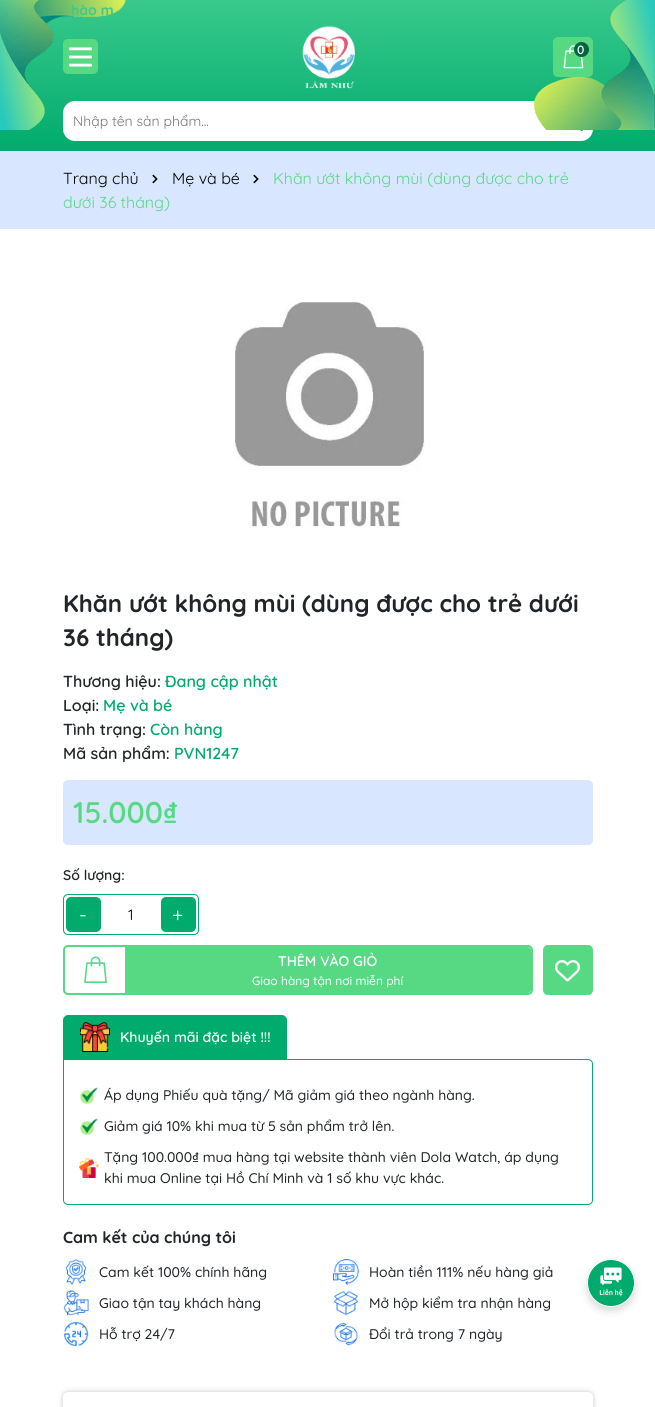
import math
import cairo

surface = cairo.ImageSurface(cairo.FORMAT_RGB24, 655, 1407)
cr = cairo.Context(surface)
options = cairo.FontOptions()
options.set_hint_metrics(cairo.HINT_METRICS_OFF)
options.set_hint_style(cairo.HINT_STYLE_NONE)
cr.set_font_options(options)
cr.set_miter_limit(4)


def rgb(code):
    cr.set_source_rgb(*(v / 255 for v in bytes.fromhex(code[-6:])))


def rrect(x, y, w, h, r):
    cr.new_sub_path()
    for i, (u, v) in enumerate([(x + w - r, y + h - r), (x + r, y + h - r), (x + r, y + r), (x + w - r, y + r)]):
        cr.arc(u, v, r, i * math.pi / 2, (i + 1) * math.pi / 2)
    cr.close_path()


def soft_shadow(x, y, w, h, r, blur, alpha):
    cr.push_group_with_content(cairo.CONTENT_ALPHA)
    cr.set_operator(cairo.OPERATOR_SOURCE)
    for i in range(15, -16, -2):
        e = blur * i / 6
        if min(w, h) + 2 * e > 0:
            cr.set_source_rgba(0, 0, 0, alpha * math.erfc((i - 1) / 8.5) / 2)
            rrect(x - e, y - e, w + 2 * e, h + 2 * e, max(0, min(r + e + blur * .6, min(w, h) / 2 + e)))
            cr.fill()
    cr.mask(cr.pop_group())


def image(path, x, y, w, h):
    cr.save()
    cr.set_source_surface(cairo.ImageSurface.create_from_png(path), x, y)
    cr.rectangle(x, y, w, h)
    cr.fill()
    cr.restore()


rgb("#ffffff")
cr.paint()
gradient = cairo.LinearGradient(328, 0, 328, 151)
gradient.add_color_stop_rgba(0, 0.224, 0.788, 0.549, 1)
gradient.add_color_stop_rgba(1, 0, 0.671, 0.427, 1)
cr.set_source(gradient)
cr.rectangle(0, 0, 655, 151)
cr.fill()
image("img/1.png", 0, 0, 126, 130)
rgb("#57d984")
rrect(63, 39, 35, 35, 5)
cr.fill()
image("img/2.png", 69, 47, 23, 20)
image("img/3.png", 302, 26, 54, 63)
rgb("#ffffff")
rrect(63, 101, 530, 40, 12)
cr.fill()
image("img/6.png", 533, 0, 122, 130)
rgb("#57d984")
rrect(553, 37, 40, 40, 5)
cr.fill()
image("img/4.png", 563, 45, 21, 24)
rgb("#006540")
cr.arc(581.5, 49.5, 7.5, 0, 2 * math.pi)
cr.fill()
image("img/5.png", 580, 130, 3, 1)
rgb("#d9e6ff")
cr.rectangle(0, 151, 655, 78)
cr.fill()
image("img/7.png", 152, 174, 6, 10)
image("img/7.png", 253, 174, 6, 10)
image("img/8.png", 233, 299, 192, 228)
rrect(63, 780, 530, 65, 5)
cr.fill()
rrect(63.5, 894.5, 135, 40, 4.5)
rgb("#00ab6d")
cr.set_line_width(1)
cr.stroke()
rrect(66, 897, 35, 35, 5)
cr.fill()
rrect(161, 897, 35, 35, 5)
cr.fill()
rrect(64, 946, 468, 48, 4)
rgb("#57d984")
cr.set_line_width(2)
cr.stroke()
image("img/9.png", 84, 956, 23, 27)
cr.new_path()
cr.move_to(125, 947)
cr.line_to(528, 947)
cr.curve_to(529.5, 947, 531, 948.5, 531, 950)
cr.line_to(531, 990)
cr.curve_to(531, 991.5, 529.5, 993, 528, 993)
cr.line_to(125, 993)
cr.close_path()
cr.fill()
rrect(543, 945, 50, 50, 5)
cr.fill()
image("img/10.png", 555, 960, 25, 22)
rgb("#00ab6d")
cr.new_path()
cr.move_to(68, 1016)
cr.line_to(282, 1016)
cr.curve_to(284, 1016, 286, 1018, 286, 1020)
cr.line_to(286, 1058)
cr.line_to(64, 1058)
cr.line_to(64, 1020)
cr.curve_to(64, 1018, 66, 1016, 68, 1016)
cr.close_path()
cr.fill_preserve()
cr.stroke()
image("img/11.png", 80, 1022, 30, 30)
cr.new_path()
cr.move_to(63.5, 1059.5)
cr.line_to(588, 1059.5)
cr.curve_to(590.5, 1059.5, 592.5, 1061.5, 592.5, 1064)
cr.line_to(592.5, 1200)
cr.curve_to(592.5, 1202.5, 590.5, 1204.5, 588, 1204.5)
cr.line_to(68, 1204.5)
cr.curve_to(65.5, 1204.5, 63.5, 1202.5, 63.5, 1200)
cr.close_path()
cr.set_line_width(1)
cr.stroke()
image("img/12.png", 79, 1087, 19, 18)
image("img/12.png", 79, 1118, 19, 18)
image("img/13.png", 79, 1158, 20, 20)
image("img/14.png", 65, 1259, 22, 26)
image("img/15.png", 333, 1259, 26, 26)
image("img/16.png", 63, 1290, 26, 26)
image("img/17.png", 333, 1291, 26, 25)
image("img/18.png", 63, 1321, 26, 26)
image("img/19.png", 334, 1322, 24, 24)
rgb("#3c4043")
soft_shadow(63, 1392, 530, 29, 5, 3, 0.25)
soft_shadow(63, 1392, 530, 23, 5, 1, 0.1)
rgb("#ffffff")
rrect(63, 1392, 530, 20, 5)
cr.fill()
rgb("#000000")
soft_shadow(587, 1263, 48, 48, 24, 4, 0.15)
rgb("#00ab6d")
cr.arc(611, 1283, 23.5, 0, 2 * math.pi)
cr.fill_preserve()
rgb("#ffffff")
cr.stroke()
image("img/20.png", 599, 1267, 24, 30)
cr.select_font_face("Quicksand", cairo.FONT_SLANT_NORMAL, cairo.FONT_WEIGHT_BOLD)
cr.set_font_size(14)
rgb("#44c884")
cr.move_to(71, 15)
cr.show_text("hào m")
cr.select_font_face("Quicksand SemiBold")
cr.set_font_size(12)
rgb("#ffffff")
cr.move_to(577, 54)
cr.show_text("0")
cr.select_font_face("Quicksand")
cr.set_font_size(14)
rgb("#757575")
cr.move_to(73, 126)
cr.show_text("Nhập tên sản phẩm...")
cr.set_font_size(16)
rgb("#000000")
cr.move_to(63, 184)
cr.show_text("Trang chủ")
cr.move_to(172, 184)
cr.show_text("Mẹ và bé")
rgb("#57d984")
cr.move_to(273, 184)
cr.show_text("Khăn ướt không mùi (dùng được cho trẻ")
cr.move_to(63, 208)
cr.show_text("dưới 36 tháng)")
cr.select_font_face("Quicksand", cairo.FONT_SLANT_NORMAL, cairo.FONT_WEIGHT_BOLD)
cr.set_font_size(24)
rgb("#212529")
cr.move_to(63, 612)
cr.show_text("Khăn ướt không mùi (dùng được cho trẻ dưới")
cr.move_to(63, 646)
cr.show_text("36 tháng)")
cr.select_font_face("Quicksand SemiBold")
cr.set_font_size(16)
cr.move_to(63, 687)
cr.show_text("Thương hiệu:")
rgb("#00ab6d")
cr.move_to(165, 687)
cr.show_text("Đang cập nhật")
rgb("#212529")
cr.move_to(63, 711)
cr.show_text("Loại:")
rgb("#00ab6d")
cr.move_to(103, 711)
cr.show_text("Mẹ và bé")
rgb("#212529")
cr.move_to(63, 735)
cr.show_text("Tình trạng:")
rgb("#00ab6d")
cr.move_to(150, 735)
cr.show_text("Còn hàng")
rgb("#212529")
cr.move_to(63, 759)
cr.show_text("Mã sản phẩm:")
rgb("#00ab6d")
cr.move_to(174, 759)
cr.show_text("PVN1247")
cr.set_font_size(30)
rgb("#57d984")
cr.move_to(73, 823)
cr.show_text("15.000₫")
cr.set_font_size(14)
rgb("#212529")
cr.move_to(63, 880)
cr.show_text("Số lượng:")
cr.select_font_face("Quicksand")
cr.set_font_size(20)
rgb("#ffffff")
cr.move_to(79, 922)
cr.show_text("-")
cr.set_font_size(15)
rgb("#000000")
cr.move_to(128, 920)
cr.show_text("1")
cr.set_font_size(20)
rgb("#ffffff")
cr.move_to(172, 922)
cr.show_text("+")
cr.select_font_face("Quicksand SemiBold")
cr.set_font_size(14)
cr.move_to(278, 966)
cr.show_text("THÊM VÀO GIỎ")
cr.select_font_face("Quicksand Medium")
cr.set_font_size(12)
cr.move_to(252, 985)
cr.show_text("Giao hàng tận nơi miễn phí")
cr.select_font_face("Quicksand SemiBold")
cr.set_font_size(14)
cr.move_to(120, 1042)
cr.show_text("Khuyến mãi đặc biệt !!!")
cr.select_font_face("Quicksand Medium")
rgb("#212529")
for x, y, s in [
    (104, 1100, "Áp dụng Phiếu quà tặng/ Mã giảm giá theo ngành hàng."),
    (104, 1131, "Giảm giá 10% khi mua từ 5 sản phẩm trở lên."),
    (104, 1162, "Tặng 100.000₫ mua hàng tại website thành viên Dola Watch, áp dụng"),
    (104, 1183, "khi mua Online tại Hồ Chí Minh và 1 số khu vực khác."),
]:
    cr.move_to(x, y)
    cr.show_text(s)
cr.select_font_face("Quicksand", cairo.FONT_SLANT_NORMAL, cairo.FONT_WEIGHT_BOLD)
cr.set_font_size(16)
cr.move_to(63, 1243)
cr.show_text("Cam kết của chúng tôi")
cr.select_font_face("Quicksand Medium")
cr.set_font_size(14)
for x, y, s in [
    (99, 1277, "Cam kết 100% chính hãng"),
    (369, 1277, "Hoàn tiền 111% nếu hàng giả"),
    (99, 1308, "Giao tận tay khách hàng"),
    (369, 1308, "Mở hộp kiểm tra nhận hàng"),
    (99, 1339, "Hỗ trợ 24/7"),
    (369, 1339, "Đổi trả trong 7 ngày"),
]:
    cr.move_to(x, y)
    cr.show_text(s)
surface.write_to_png("page.png")
